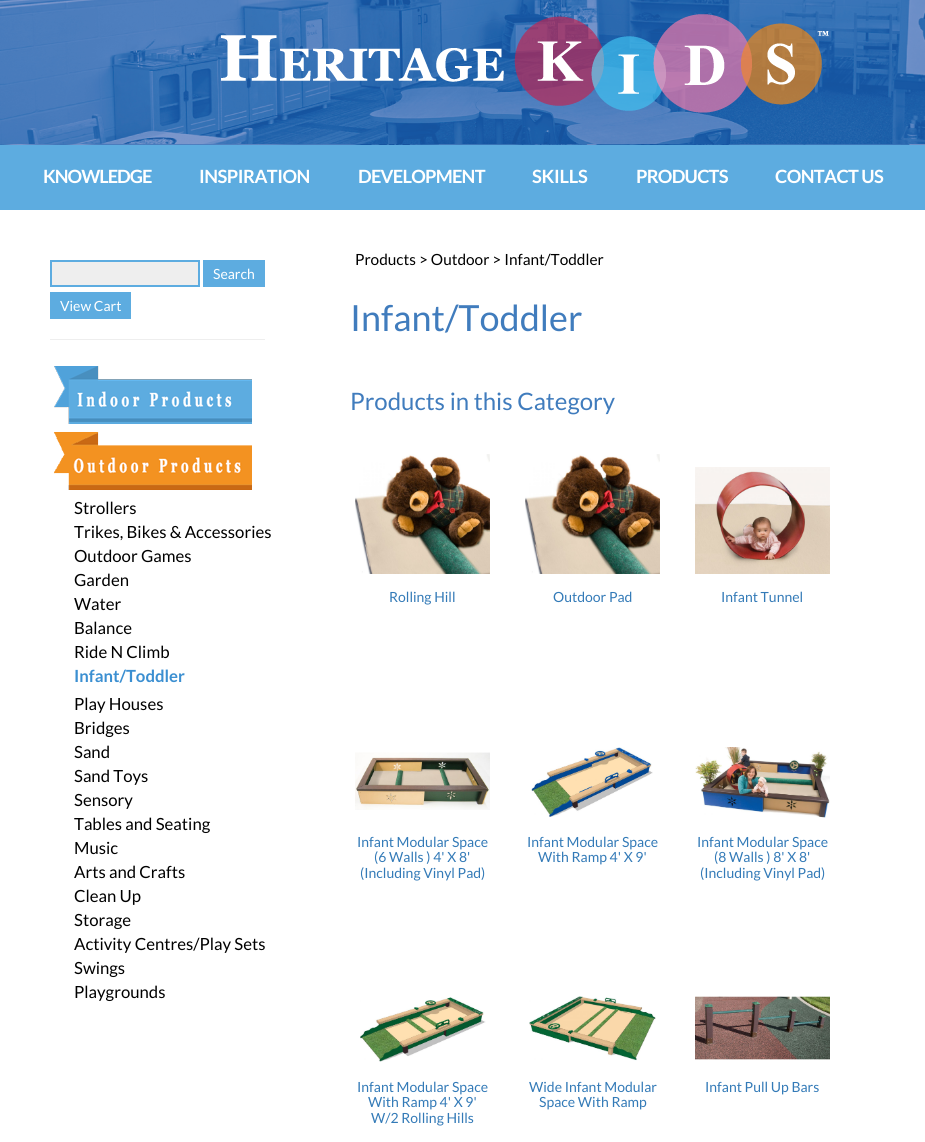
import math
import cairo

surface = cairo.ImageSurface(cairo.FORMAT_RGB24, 925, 1142)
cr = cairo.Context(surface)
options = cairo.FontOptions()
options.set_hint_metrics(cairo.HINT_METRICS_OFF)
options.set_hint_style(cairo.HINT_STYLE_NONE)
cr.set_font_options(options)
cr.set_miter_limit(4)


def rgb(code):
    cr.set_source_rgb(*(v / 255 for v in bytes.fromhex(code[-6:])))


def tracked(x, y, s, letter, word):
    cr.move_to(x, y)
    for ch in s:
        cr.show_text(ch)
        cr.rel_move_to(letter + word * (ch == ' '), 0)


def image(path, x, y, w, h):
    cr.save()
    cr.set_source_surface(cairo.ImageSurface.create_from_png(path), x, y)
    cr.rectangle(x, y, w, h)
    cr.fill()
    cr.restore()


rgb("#ffffff")
cr.paint()
image("img/1.png", 0, 0, 925, 145)
image("img/2.png", 221, 14, 608, 99)
rgb("#5dace0")
cr.rectangle(0, 145, 925, 65)
cr.fill()
rgb("#eeeeee")
cr.rectangle(51, 261, 148, 25)
cr.fill_preserve()
rgb("#5dace0")
cr.stroke()
for x, y, w, h, color in [
    (203, 260, 62, 27, "#5dace0"),
    (50, 292, 81, 27, "#5dace0"),
    (50, 339, 215, 1, "#eeeeee"),
]:
    rgb(color)
    cr.rectangle(x, y, w, h)
    cr.fill()
image("img/3.png", 54, 366, 198, 58)
image("img/4.png", 53, 431, 199, 59)
image("img/5.png", 355, 454, 135, 120)
image("img/5.png", 525, 454, 135, 120)
image("img/6.png", 695, 467, 135, 107)
image("img/7.png", 355, 752, 135, 58)
image("img/8.png", 531, 747, 122, 70)
image("img/9.png", 695, 747, 135, 71)
image("img/10.png", 360, 997, 126, 65)
image("img/11.png", 529, 996, 127, 65)
image("img/12.png", 695, 996, 135, 64)
cr.select_font_face("Lato", cairo.FONT_SLANT_NORMAL, cairo.FONT_WEIGHT_BOLD)
cr.set_font_size(18.25)
rgb("#ffffff")
tracked(43, 183, "KNOWLEDGE", -1, 0)
tracked(199, 183, "INSPIRATION", -0.5, 0)
tracked(358, 183, "DEVELOPMENT", -0.75, 0)
tracked(532, 183, "SKILLS", -0.25, 0)
tracked(636, 183, "PRODUCTS", -0.75, 0)
tracked(775, 183, "CONTACT US", -0.6, 0)
cr.select_font_face("Lato")
cr.set_font_size(14)
cr.move_to(213, 279)
cr.show_text("Search")
cr.move_to(60, 311)
cr.show_text("View Cart")
cr.set_font_size(16.75)
rgb("#000000")
for x, y, s in [
    (74, 514, "Strollers"),
    (74, 538, "Trikes, Bikes & Accessories"),
    (74, 562, "Outdoor Games"),
    (74, 586, "Garden"),
    (74, 610, "Water"),
    (74, 634, "Balance"),
    (74, 658, "Ride N Climb"),
]:
    cr.move_to(x, y)
    cr.show_text(s)
cr.select_font_face("Lato", cairo.FONT_SLANT_NORMAL, cairo.FONT_WEIGHT_BOLD)
rgb("#3b8fd1")
cr.move_to(74, 682)
cr.show_text("Infant/Toddler")
cr.select_font_face("Lato")
rgb("#000000")
for x, y, s in [
    (74, 710, "Play Houses"),
    (74, 734, "Bridges"),
    (74, 758, "Sand"),
    (74, 782, "Sand Toys"),
    (74, 806, "Sensory"),
    (74, 830, "Tables and Seating"),
    (74, 854, "Music"),
    (74, 878, "Arts and Crafts"),
    (74, 902, "Clean Up"),
    (74, 926, "Storage"),
    (74, 950, "Activity Centres/Play Sets"),
    (74, 974, "Swings"),
    (74, 998, "Playgrounds"),
]:
    cr.move_to(x, y)
    cr.show_text(s)
cr.set_font_size(15.4)
cr.move_to(355, 265)
cr.show_text("Products > Outdoor > Infant/Toddler")
cr.set_font_size(36)
rgb("#407cbd")
cr.move_to(350, 331)
cr.show_text("Infant/Toddler")
cr.set_font_size(24)
cr.move_to(350, 410)
cr.show_text("Products in this Category")
cr.set_font_size(14)
rgb("#337ab7")
for x, y, s in [
    (389, 602, "Rolling Hill"),
    (553, 602, "Outdoor Pad"),
    (721, 602, "Infant Tunnel"),
    (357, 847, "Infant Modular Space"),
    (374, 862, "(6 Walls ) 4' X 8'"),
    (360, 878, "(Including Vinyl Pad)"),
    (527, 847, "Infant Modular Space"),
    (538, 862, "With Ramp 4' X 9'"),
    (697, 847, "Infant Modular Space"),
    (714, 862, "(8 Walls ) 8' X 8'"),
    (700, 878, "(Including Vinyl Pad)"),
    (357, 1092, "Infant Modular Space"),
    (368, 1107, "With Ramp 4' X 9'"),
    (371, 1123, "W/2 Rolling Hills"),
    (529, 1092, "Wide Infant Modular"),
    (539, 1107, "Space With Ramp"),
    (705, 1092, "Infant Pull Up Bars"),
]:
    cr.move_to(x, y)
    cr.show_text(s)
surface.write_to_png("page.png")
